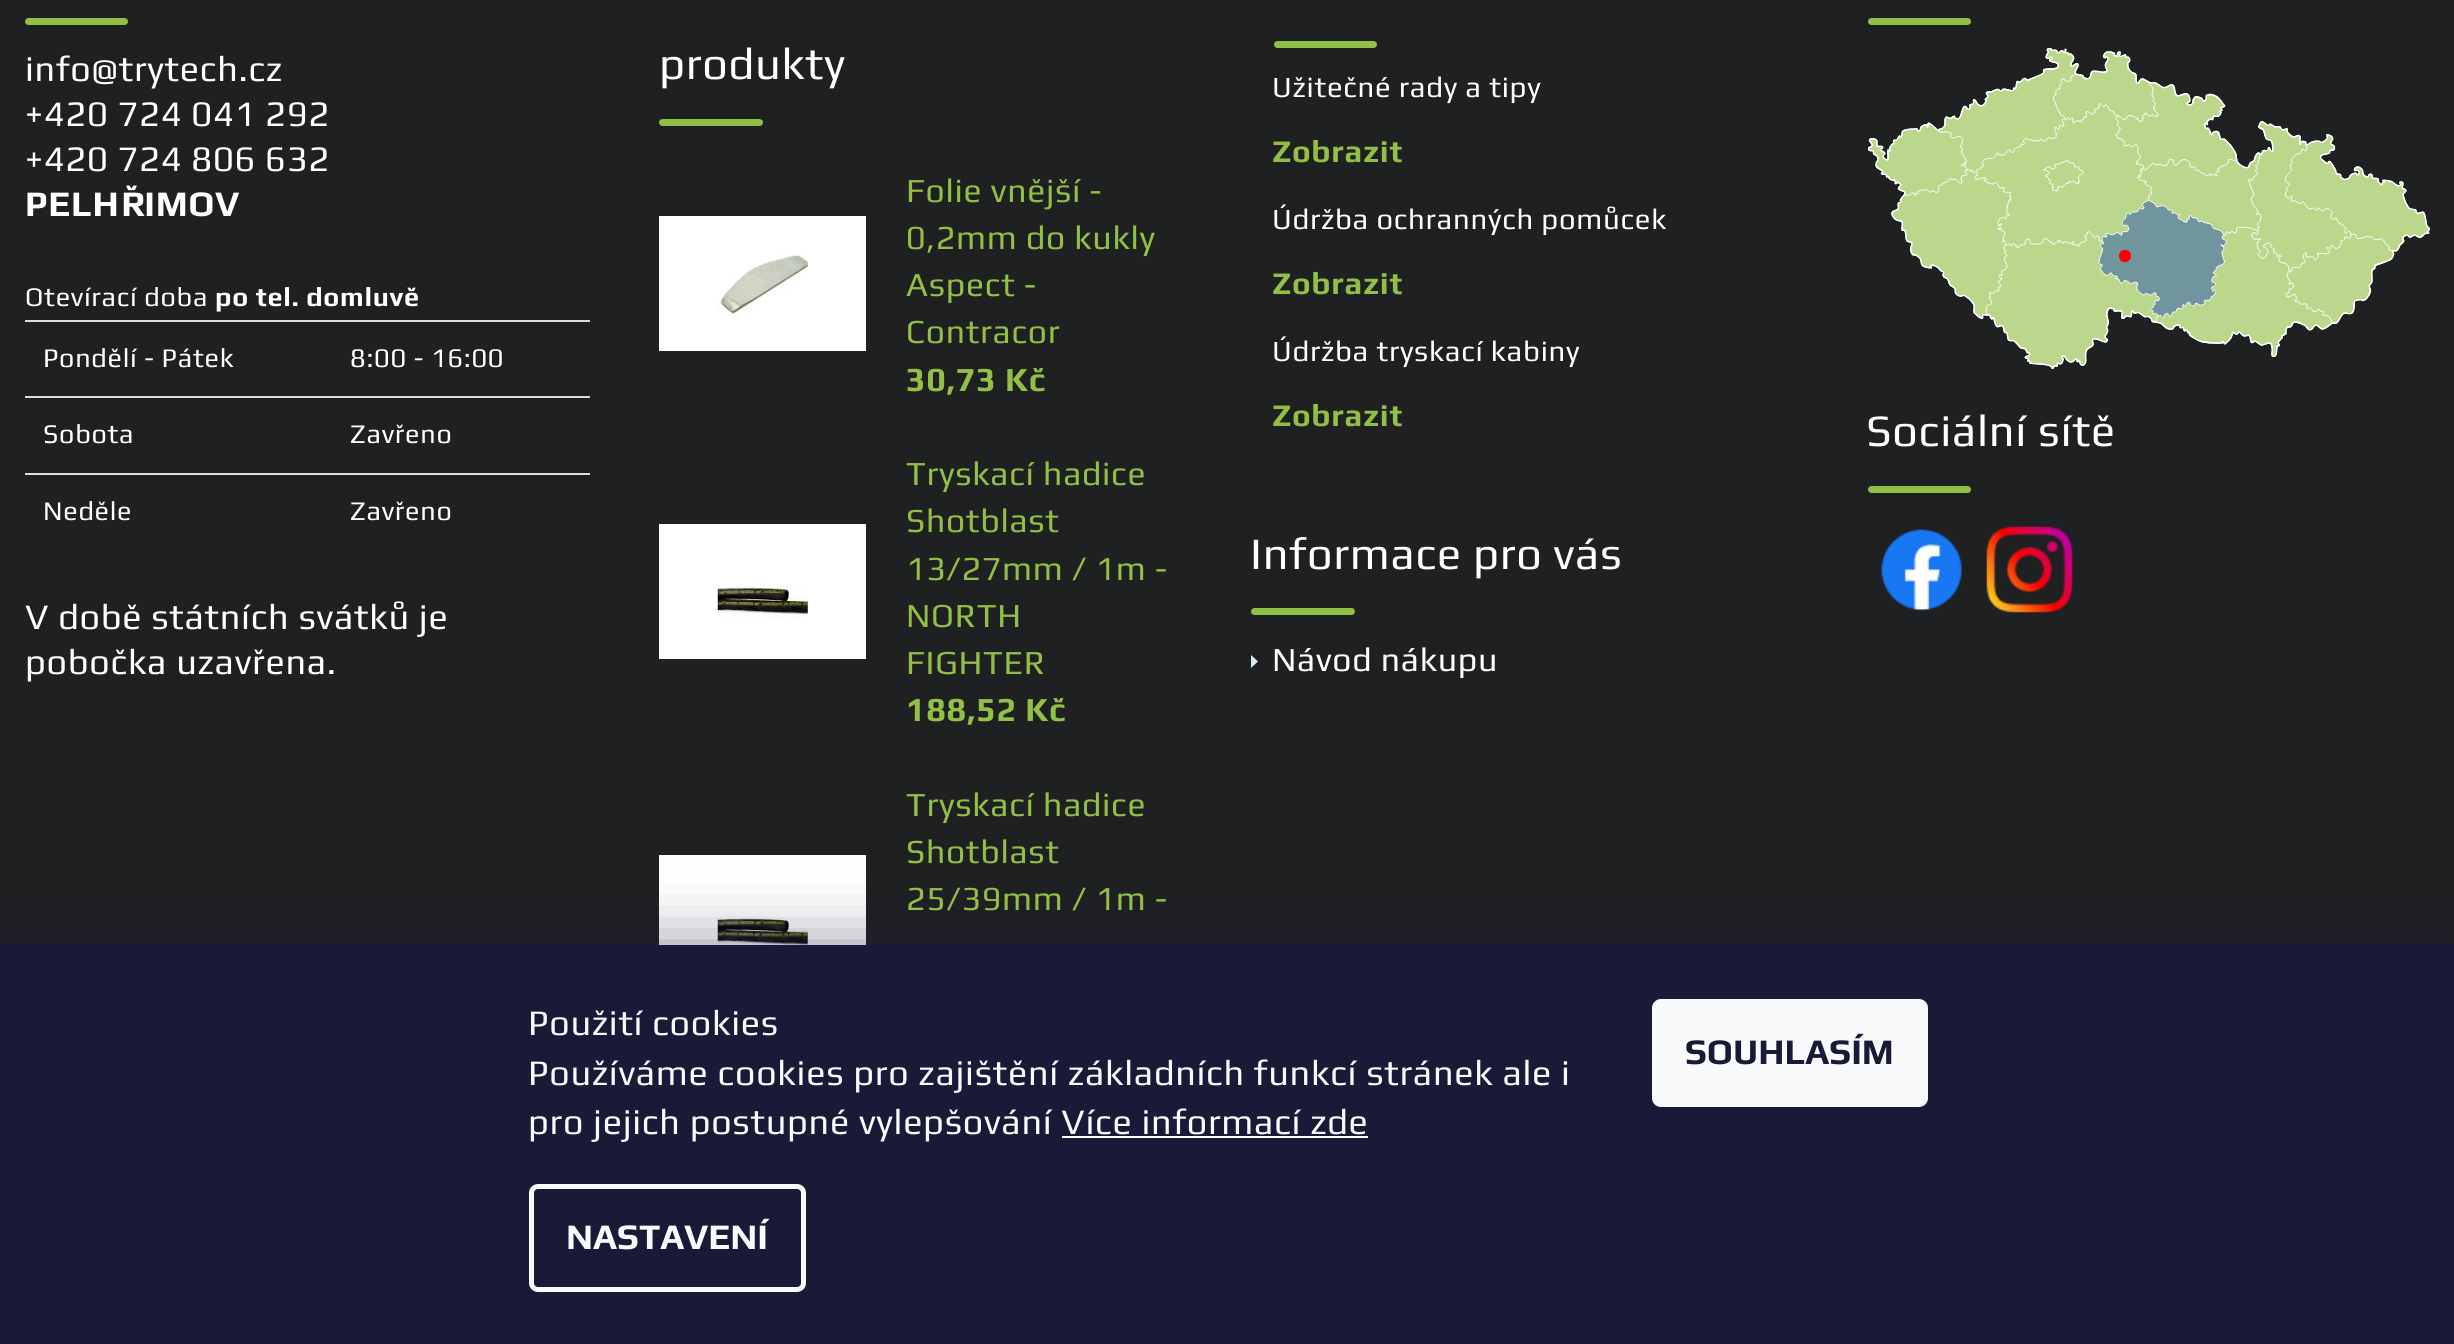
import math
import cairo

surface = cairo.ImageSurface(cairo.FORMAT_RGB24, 2454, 1344)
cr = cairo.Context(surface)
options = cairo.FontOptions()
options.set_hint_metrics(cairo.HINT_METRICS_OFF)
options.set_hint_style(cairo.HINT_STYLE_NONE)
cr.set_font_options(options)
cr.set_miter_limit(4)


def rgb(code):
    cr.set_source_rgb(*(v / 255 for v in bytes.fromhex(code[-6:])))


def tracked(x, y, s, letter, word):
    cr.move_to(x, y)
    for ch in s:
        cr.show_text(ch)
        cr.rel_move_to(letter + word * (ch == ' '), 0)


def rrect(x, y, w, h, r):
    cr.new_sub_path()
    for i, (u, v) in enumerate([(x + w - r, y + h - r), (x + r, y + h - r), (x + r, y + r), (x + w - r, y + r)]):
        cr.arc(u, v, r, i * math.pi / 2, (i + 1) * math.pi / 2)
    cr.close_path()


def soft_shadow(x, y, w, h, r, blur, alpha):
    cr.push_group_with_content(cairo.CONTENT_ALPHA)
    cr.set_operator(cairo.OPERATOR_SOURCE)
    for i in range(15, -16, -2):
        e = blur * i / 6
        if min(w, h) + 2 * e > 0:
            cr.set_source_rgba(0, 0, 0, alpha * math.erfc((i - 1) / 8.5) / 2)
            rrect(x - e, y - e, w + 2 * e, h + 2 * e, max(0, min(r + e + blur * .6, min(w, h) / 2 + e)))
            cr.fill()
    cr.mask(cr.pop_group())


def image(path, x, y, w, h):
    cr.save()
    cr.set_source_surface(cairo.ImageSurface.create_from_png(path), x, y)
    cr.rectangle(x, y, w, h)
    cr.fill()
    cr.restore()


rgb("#1f2022")
cr.paint()
rgb("#92c046")
rrect(25, 18, 103, 7, 3.5)
cr.fill()
for x, y, w, h, color in [
    (25, 320, 565, 2, "#dddddd"),
    (25, 396, 565, 2, "#dddddd"),
    (25, 473, 565, 2, "#dddddd"),
]:
    rgb(color)
    cr.rectangle(x, y, w, h)
    cr.fill()
rgb("#92c046")
rrect(659, 119, 104, 7, 3.5)
cr.fill()
rgb("#ffffff")
cr.rectangle(659, 216, 207, 135)
cr.fill()
image("img/1.png", 718, 253, 90, 64)
cr.rectangle(659, 524, 207, 135)
cr.fill()
image("img/2.png", 717, 584, 91, 35)
cr.rectangle(659, 855, 207, 90)
cr.fill()
image("img/3.png", 717, 914, 91, 31)
rgb("#92c046")
rrect(1274, 41, 103, 7, 3.5)
cr.fill()
rrect(1251, 608, 104, 7, 3.5)
cr.fill()
rgb("#d1ebec")
cr.new_path()
cr.move_to(1251, 668)
cr.line_to(1251, 655)
cr.line_to(1258, 661.5)
cr.close_path()
cr.fill()
rgb("#92c046")
rrect(1868, 18, 103, 7, 3.5)
cr.fill()
image("img/4.png", 1868, 48, 562, 321)
rrect(1868, 486, 103, 7, 3.5)
cr.fill()
image("img/5.png", 1880, 529, 83, 82)
image("img/6.png", 1986, 526, 87, 87)
rgb("#1b1939")
soft_shadow(0, 945, 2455, 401, 0, 34, 0.5)
rgb("#1a1937")
cr.rectangle(0, 945, 2454, 399)
cr.fill()
rgb("#f8fafb")
cr.rectangle(1062, 1136, 306, 2)
cr.fill()
rrect(531.5, 1186.5, 272, 103, 6.5)
cr.set_line_width(5)
cr.stroke()
rrect(1652, 999, 276, 108, 9)
cr.fill()
cr.select_font_face("Play")
cr.set_font_size(36)
rgb("#ffffff")
for x, y, s in [
    (25, 81, "info@trytech.cz"),
    (25, 126, "+420 724 041 292"),
    (25, 171, "+420 724 806 632"),
]:
    tracked(x, y, s, 0.72, 0)
cr.select_font_face("Play", cairo.FONT_SLANT_NORMAL, cairo.FONT_WEIGHT_BOLD)
tracked(25, 216, "PELHŘIMOV", 0.72, 0)
cr.select_font_face("Play")
cr.set_font_size(27)
tracked(25, 306, "Otevírací doba", 0.72, 0)
cr.select_font_face("Play", cairo.FONT_SLANT_NORMAL, cairo.FONT_WEIGHT_BOLD)
tracked(215, 306, "po tel. domluvě", 0.72, 0)
cr.select_font_face("Play")
for x, y, s in [
    (43, 367, "Pondělí - Pátek"),
    (350, 367, "8:00 - 16:00"),
    (43, 443, "Sobota"),
    (350, 443, "Zavřeno"),
    (43, 520, "Neděle"),
    (350, 520, "Zavřeno"),
]:
    tracked(x, y, s, 0.72, 0)
cr.set_font_size(36)
tracked(25, 629, "V době státních svátků je", 0.72, 0)
tracked(25, 674, "pobočka uzavřena.", 0.72, 0)
cr.set_font_size(45)
tracked(659, 79, "produkty", 0.72, 0)
cr.set_font_size(33.75)
rgb("#91c045")
for x, y, s in [
    (906, 202, "Folie vnější -"),
    (906, 249, "0,2mm do kukly"),
    (906, 296, "Aspect -"),
    (906, 343, "Contracor"),
]:
    tracked(x, y, s, 0.72, 0)
cr.select_font_face("Play", cairo.FONT_SLANT_NORMAL, cairo.FONT_WEIGHT_BOLD)
tracked(906, 391, "30,73 Kč", 0.72, 0)
cr.select_font_face("Play")
for x, y, s in [
    (906, 485, "Tryskací hadice"),
    (906, 532, "Shotblast"),
    (906, 580, "13/27mm / 1m -"),
    (906, 627, "NORTH"),
    (906, 674, "FIGHTER"),
]:
    tracked(x, y, s, 0.72, 0)
cr.select_font_face("Play", cairo.FONT_SLANT_NORMAL, cairo.FONT_WEIGHT_BOLD)
tracked(906, 721, "188,52 Kč", 0.72, 0)
cr.select_font_face("Play")
for x, y, s in [
    (906, 816, "Tryskací hadice"),
    (906, 863, "Shotblast"),
    (906, 910, "25/39mm / 1m -"),
]:
    tracked(x, y, s, 0.72, 0)
cr.set_font_size(29.25)
rgb("#ffffff")
tracked(1272, 97, "Užitečné rady a tipy", 0.72, 0)
cr.select_font_face("Play", cairo.FONT_SLANT_NORMAL, cairo.FONT_WEIGHT_BOLD)
cr.set_font_size(31.5)
rgb("#91c045")
tracked(1272, 162, "Zobrazit", 0.72, 0)
cr.select_font_face("Play")
cr.set_font_size(29.25)
rgb("#ffffff")
tracked(1272, 229, "Údržba ochranných pomůcek", 0.72, 0)
cr.select_font_face("Play", cairo.FONT_SLANT_NORMAL, cairo.FONT_WEIGHT_BOLD)
cr.set_font_size(31.5)
rgb("#91c045")
tracked(1272, 294, "Zobrazit", 0.72, 0)
cr.select_font_face("Play")
cr.set_font_size(29.25)
rgb("#ffffff")
tracked(1272, 361, "Údržba tryskací kabiny", 0.72, 0)
cr.select_font_face("Play", cairo.FONT_SLANT_NORMAL, cairo.FONT_WEIGHT_BOLD)
cr.set_font_size(31.5)
rgb("#91c045")
tracked(1272, 426, "Zobrazit", 0.72, 0)
cr.select_font_face("Play")
cr.set_font_size(45)
rgb("#ffffff")
tracked(1250, 569, "Informace pro vás", 0.72, 0)
cr.set_font_size(33.75)
tracked(1272, 671, "Návod nákupu", 0.72, 0)
cr.set_font_size(45)
tracked(1866, 446, "Sociální sítě", 0.72, 0)
cr.set_font_size(36)
rgb("#f8fafb")
for x, y, s in [
    (528, 1035, "Použití cookies"),
    (528, 1085, "Používáme cookies pro zajištění základních funkcí stránek ale i"),
    (528, 1134, "pro jejich postupné vylepšování Více informací zde"),
]:
    tracked(x, y, s, 0.72, 0)
cr.select_font_face("Play", cairo.FONT_SLANT_NORMAL, cairo.FONT_WEIGHT_BOLD)
cr.move_to(566, 1249)
cr.show_text("NASTAVENÍ")
rgb("#1a1937")
cr.move_to(1685, 1064)
cr.show_text("SOUHLASÍM")
surface.write_to_png("page.png")
